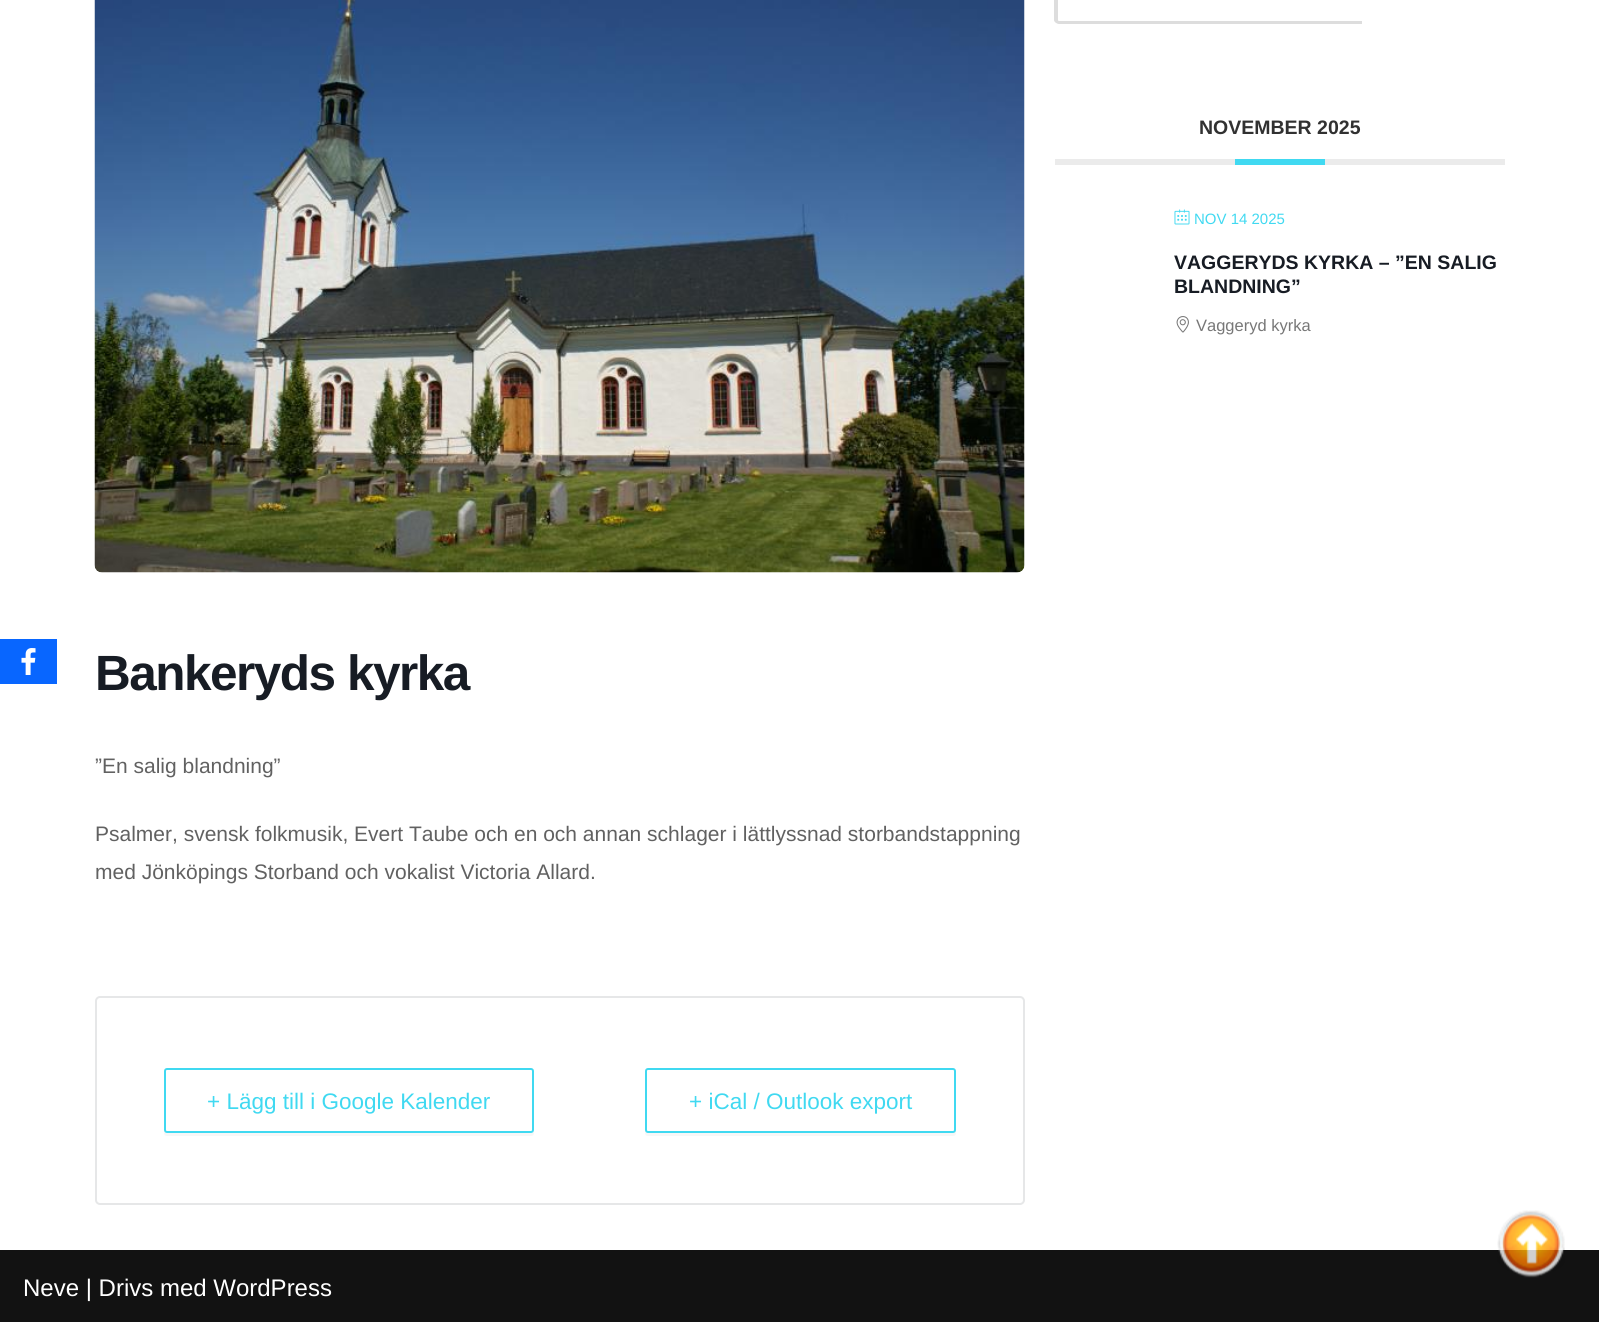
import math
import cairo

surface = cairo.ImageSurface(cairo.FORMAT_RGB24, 1599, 1322)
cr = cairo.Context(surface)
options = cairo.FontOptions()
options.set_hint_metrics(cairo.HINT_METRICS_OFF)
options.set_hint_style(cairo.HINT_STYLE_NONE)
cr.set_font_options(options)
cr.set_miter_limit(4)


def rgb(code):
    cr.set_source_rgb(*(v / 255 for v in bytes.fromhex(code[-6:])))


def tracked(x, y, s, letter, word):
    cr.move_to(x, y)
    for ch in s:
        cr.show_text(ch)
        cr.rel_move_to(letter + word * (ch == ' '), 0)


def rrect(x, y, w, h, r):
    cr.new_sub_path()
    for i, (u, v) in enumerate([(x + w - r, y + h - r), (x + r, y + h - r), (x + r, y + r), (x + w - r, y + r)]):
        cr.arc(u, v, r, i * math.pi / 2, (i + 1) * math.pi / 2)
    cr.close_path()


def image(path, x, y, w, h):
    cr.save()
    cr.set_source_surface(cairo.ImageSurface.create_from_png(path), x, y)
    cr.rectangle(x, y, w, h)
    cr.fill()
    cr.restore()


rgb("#ffffff")
cr.paint()
rgb("#dddddd")
cr.set_fill_rule(cairo.FILL_RULE_EVEN_ODD)
cr.new_path()
cr.move_to(1059, -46)
cr.line_to(1362, -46)
cr.line_to(1362, 24)
cr.line_to(1059, 24)
cr.curve_to(1057, 24, 1054, 22, 1054, 20)
cr.line_to(1054, -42)
cr.curve_to(1054, -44, 1057, -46, 1059, -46)
cr.close_path()
cr.move_to(1059, -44)
cr.line_to(1362, -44)
cr.line_to(1362, 21)
cr.line_to(1059, 21)
cr.curve_to(1058, 21, 1058, 20, 1058, 20)
cr.line_to(1058, -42)
cr.curve_to(1058, -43, 1058, -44, 1059, -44)
cr.close_path()
cr.fill()
rgb("#ebebeb")
cr.rectangle(1055, 159, 450, 6)
cr.fill()
rgb("#40d9f1")
cr.rectangle(1235, 159, 90, 6)
cr.fill()
image("img/1.png", 1174, 209, 16, 16)
image("img/2.png", 1176, 316, 13, 17)
image("img/3.png", 94, 0, 931, 573)
rrect(96, 997, 928, 207, 4)
rgb("#e6e7e8")
cr.stroke()
rgb("#f7f7f7")
cr.set_fill_rule(cairo.FILL_RULE_WINDING)
cr.new_path()
cr.move_to(164, 1131)
cr.line_to(164, 1133)
cr.curve_to(164, 1135, 165, 1136, 167, 1136)
cr.line_to(531, 1136)
cr.curve_to(533, 1136, 534, 1135, 534, 1133)
cr.line_to(534, 1130)
cr.curve_to(534, 1131, 533, 1132, 532, 1132)
cr.line_to(166, 1132)
cr.close_path()
cr.fill()
rgb("#ffffff")
rrect(165, 1069, 368, 63, 2)
cr.fill_preserve()
rgb("#40d9f1")
cr.stroke()
rgb("#f7f7f7")
cr.new_path()
cr.move_to(645, 1130)
cr.line_to(645, 1133)
cr.curve_to(645, 1135, 646, 1136, 648, 1136)
cr.line_to(953, 1136)
cr.curve_to(955, 1136, 956, 1135, 956, 1133)
cr.line_to(956, 1074)
cr.line_to(956, 1072)
cr.line_to(956, 1130)
cr.curve_to(956, 1131, 954, 1132, 952, 1132)
cr.line_to(648, 1132)
cr.curve_to(646, 1132, 645, 1131, 645, 1130)
cr.close_path()
cr.fill()
rgb("#ffffff")
rrect(646, 1069, 309, 63, 2)
cr.fill_preserve()
rgb("#40d9f1")
cr.stroke()
rgb("#121212")
cr.rectangle(0, 1250, 1599, 72)
cr.fill()
rgb("#0866ff")
cr.rectangle(0, 639, 57, 45)
cr.fill()
image("img/4.png", 21, 648, 15, 27)
image("img/5.png", 1497, 1210, 68, 68)
cr.select_font_face("Liberation Sans", cairo.FONT_SLANT_NORMAL, cairo.FONT_WEIGHT_BOLD)
cr.set_font_size(19.5)
rgb("#313131")
cr.move_to(1199, 134)
cr.show_text("NOVEMBER 2025")
cr.select_font_face("Liberation Sans")
cr.set_font_size(15)
rgb("#40d9f1")
cr.move_to(1194, 224)
cr.show_text("NOV 14 2025")
cr.select_font_face("Liberation Sans", cairo.FONT_SLANT_NORMAL, cairo.FONT_WEIGHT_BOLD)
cr.set_font_size(19.5)
rgb("#171c24")
cr.move_to(1174, 269)
cr.show_text("VAGGERYDS KYRKA – ”EN SALIG")
cr.move_to(1174, 293)
cr.show_text("BLANDNING”")
cr.select_font_face("Liberation Sans")
cr.set_font_size(16.5)
rgb("#777777")
cr.move_to(1196, 331)
cr.show_text("Vaggeryd kyrka")
cr.select_font_face("Liberation Sans", cairo.FONT_SLANT_NORMAL, cairo.FONT_WEIGHT_BOLD)
cr.set_font_size(49.5)
rgb("#171c24")
tracked(95, 690, "Bankeryds kyrka", -1.5, 0)
cr.select_font_face("Liberation Sans")
cr.set_font_size(21)
rgb("#616161")
for x, y, s in [
    (95, 773, "”En salig blandning”"),
    (95, 841, "Psalmer, svensk folkmusik, Evert Taube och en och annan schlager i lättlyssnad storbandstappning"),
    (95, 879, "med Jönköpings Storband och vokalist Victoria Allard."),
]:
    cr.move_to(x, y)
    cr.show_text(s)
cr.set_font_size(22.5)
rgb("#40d9f1")
cr.move_to(207, 1109)
cr.show_text("+ Lägg till i Google Kalender")
cr.move_to(689, 1109)
cr.show_text("+ iCal / Outlook export")
cr.set_font_size(24)
rgb("#ffffff")
cr.move_to(23, 1296)
cr.show_text("Neve | Drivs med WordPress")
surface.write_to_png("page.png")
